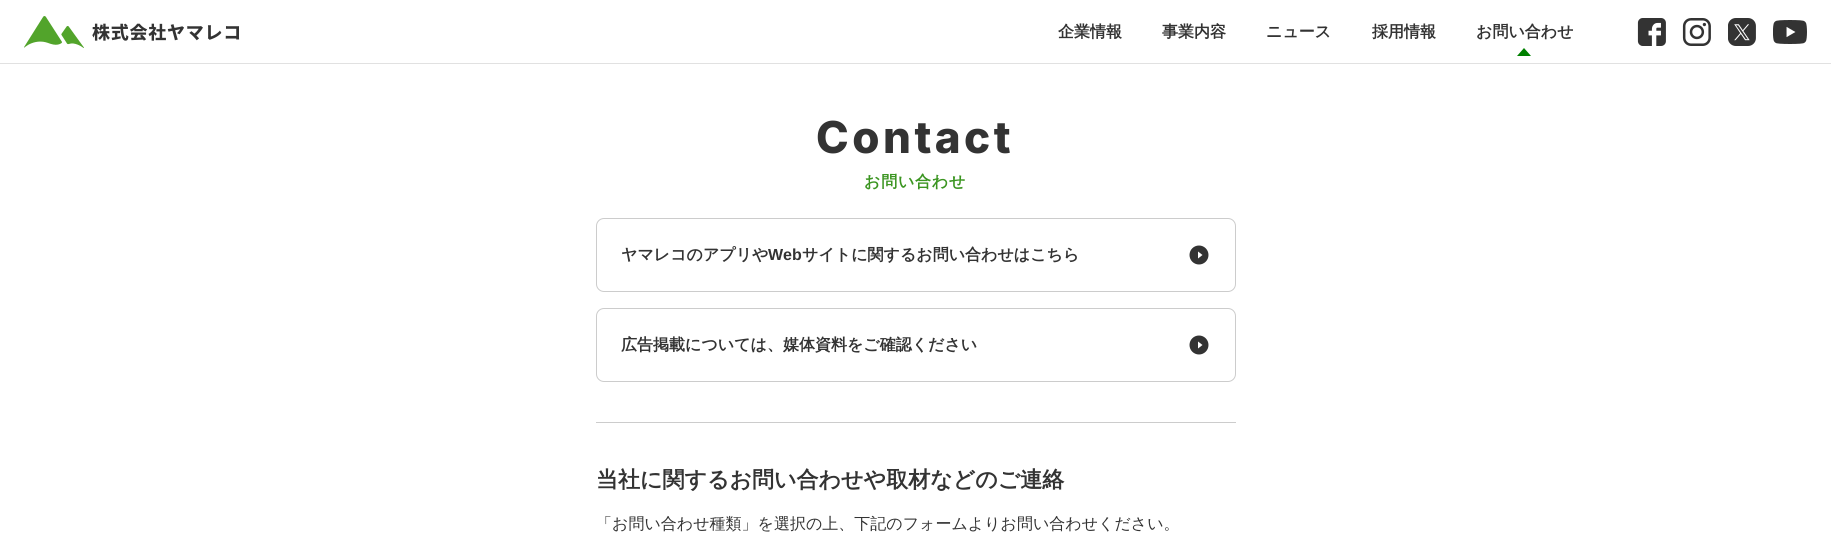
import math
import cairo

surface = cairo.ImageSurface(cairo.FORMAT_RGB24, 1831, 554)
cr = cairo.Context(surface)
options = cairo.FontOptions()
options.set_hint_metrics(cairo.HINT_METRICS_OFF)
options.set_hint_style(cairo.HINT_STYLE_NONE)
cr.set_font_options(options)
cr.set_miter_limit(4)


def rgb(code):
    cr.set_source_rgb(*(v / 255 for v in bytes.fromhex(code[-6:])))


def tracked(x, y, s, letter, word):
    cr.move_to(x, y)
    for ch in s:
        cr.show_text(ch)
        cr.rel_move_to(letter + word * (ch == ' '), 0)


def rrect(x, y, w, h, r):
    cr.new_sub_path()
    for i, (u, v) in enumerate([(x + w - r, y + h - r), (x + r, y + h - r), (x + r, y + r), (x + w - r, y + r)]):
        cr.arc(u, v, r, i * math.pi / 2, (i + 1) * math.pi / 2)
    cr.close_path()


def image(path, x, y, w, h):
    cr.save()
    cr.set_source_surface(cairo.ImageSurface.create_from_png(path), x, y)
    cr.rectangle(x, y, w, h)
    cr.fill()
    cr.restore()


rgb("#ffffff")
cr.paint()
rgb("#e1e1e1")
cr.rectangle(0, 63, 1831, 1)
cr.fill()
image("img/1.png", 24, 16, 60, 32)
rgb("#008000")
cr.new_path()
cr.move_to(1531, 56)
cr.line_to(1517, 56)
cr.line_to(1524, 48)
cr.close_path()
cr.fill()
image("img/2.png", 1637, 18, 29, 28)
image("img/3.png", 1682, 18, 29, 28)
image("img/4.png", 1728, 18, 28, 28)
image("img/5.png", 1773, 20, 34, 24)
rrect(596.5, 218.5, 639, 73, 7.5)
rgb("#cccccc")
cr.set_line_width(1)
cr.stroke()
rgb("#333333")
cr.arc(1199, 255, 9.5, 0, 2 * math.pi)
cr.fill()
rgb("#ffffff")
cr.new_path()
cr.move_to(1202.5, 255)
cr.line_to(1198, 258.5)
cr.line_to(1198, 251.5)
cr.close_path()
cr.fill()
rrect(596.5, 308.5, 639, 73, 7.5)
rgb("#cccccc")
cr.stroke()
rgb("#333333")
cr.arc(1199, 345, 9.5, 0, 2 * math.pi)
cr.fill()
rgb("#ffffff")
cr.new_path()
cr.move_to(1202.5, 345)
cr.line_to(1198, 348.5)
cr.line_to(1198, 341.5)
cr.close_path()
cr.fill()
rgb("#cccccc")
cr.rectangle(596, 422, 640, 1)
cr.fill()
cr.select_font_face("Noto Sans JP ExtraBold")
cr.set_font_size(18)
rgb("#333333")
tracked(92, 39, "株式会社ヤマレコ", 0.75, 0)
cr.select_font_face("WenQuanYi Zen Hei", cairo.FONT_SLANT_NORMAL, cairo.FONT_WEIGHT_BOLD)
cr.set_font_size(16)
for x, y, s in [
    (1058, 37, "企業情報"),
    (1162, 37, "事業内容"),
    (1266, 37, "ニュース"),
    (1372, 37, "採用情報"),
    (1476, 37, "お問い合わせ"),
]:
    cr.move_to(x, y)
    cr.show_text(s)
cr.select_font_face("Inter ExtraBold")
cr.set_font_size(44)
tracked(816, 153, "Contact", 3.5, 0)
cr.select_font_face("WenQuanYi Zen Hei", cairo.FONT_SLANT_NORMAL, cairo.FONT_WEIGHT_BOLD)
cr.set_font_size(16)
rgb("#3b9521")
tracked(864, 187, "お問い合わせ", 0.75, 0)
rgb("#333333")
cr.move_to(621, 260)
cr.show_text("ヤマレコのアプリや")
cr.select_font_face("Liberation Sans", cairo.FONT_SLANT_NORMAL, cairo.FONT_WEIGHT_BOLD)
cr.move_to(768, 260)
cr.show_text("Web")
cr.select_font_face("WenQuanYi Zen Hei", cairo.FONT_SLANT_NORMAL, cairo.FONT_WEIGHT_BOLD)
cr.move_to(802, 260)
cr.show_text("サイトに関するお問い合わせはこちら")
cr.move_to(621, 350)
cr.show_text("広告掲載については、媒体資料をご確認ください")
cr.set_font_size(22)
cr.move_to(596, 487)
cr.show_text("当社に関するお問い合わせや取材などのご連絡")
cr.select_font_face("WenQuanYi Zen Hei Medium")
cr.set_font_size(16)
cr.move_to(596, 529)
cr.show_text("「お問い合わせ種類」を選択の上、下記のフォームよりお問い合わせください。")
surface.write_to_png("page.png")
